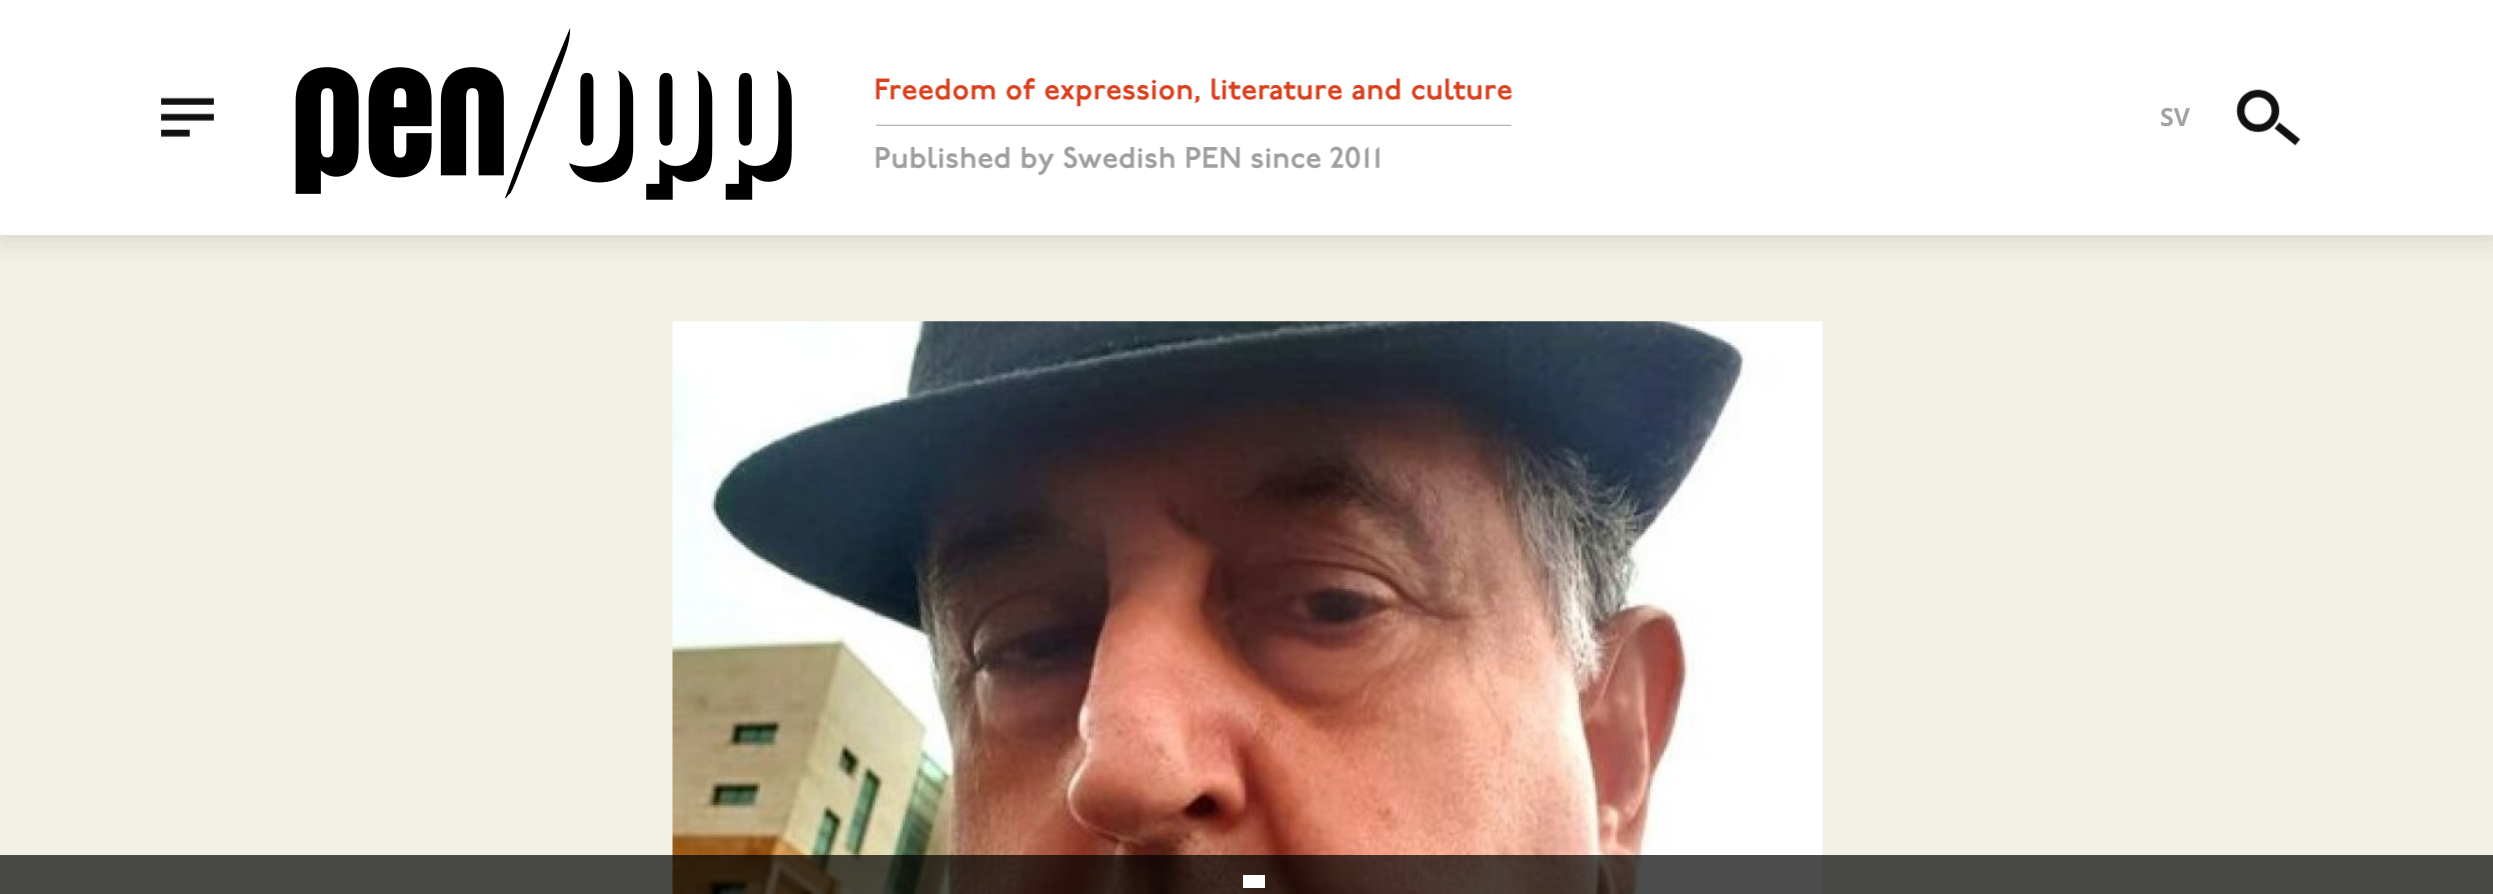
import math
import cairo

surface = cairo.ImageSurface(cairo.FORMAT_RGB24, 2493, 894)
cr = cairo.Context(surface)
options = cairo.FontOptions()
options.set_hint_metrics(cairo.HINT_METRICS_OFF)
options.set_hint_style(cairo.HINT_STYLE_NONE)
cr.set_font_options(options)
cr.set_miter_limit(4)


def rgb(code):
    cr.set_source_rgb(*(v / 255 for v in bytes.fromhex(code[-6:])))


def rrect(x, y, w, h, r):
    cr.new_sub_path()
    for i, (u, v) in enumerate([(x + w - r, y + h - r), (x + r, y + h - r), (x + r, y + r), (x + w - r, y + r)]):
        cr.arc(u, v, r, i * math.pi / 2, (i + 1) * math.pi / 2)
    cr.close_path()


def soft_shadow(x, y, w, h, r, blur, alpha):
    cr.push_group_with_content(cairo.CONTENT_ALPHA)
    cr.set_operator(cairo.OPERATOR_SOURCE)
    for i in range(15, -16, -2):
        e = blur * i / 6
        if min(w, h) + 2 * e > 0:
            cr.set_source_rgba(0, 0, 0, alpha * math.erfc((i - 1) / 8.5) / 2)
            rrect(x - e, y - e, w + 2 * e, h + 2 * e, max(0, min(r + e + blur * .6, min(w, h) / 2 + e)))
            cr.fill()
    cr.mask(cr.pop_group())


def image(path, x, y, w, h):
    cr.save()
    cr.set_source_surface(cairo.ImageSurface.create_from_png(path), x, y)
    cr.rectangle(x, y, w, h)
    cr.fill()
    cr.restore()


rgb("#f2f0e4")
cr.paint()
rgb("#000000")
soft_shadow(0, 0, 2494, 235, 0, 15.5, 0.15)
rgb("#ffffff")
cr.rectangle(0, 0, 2493, 235)
cr.fill()
image("img/1.png", 161, 97, 53, 40)
image("img/2.png", 295, 28, 497, 172)
image("img/3.png", 875, 78, 637, 97)
image("img/4.png", 2236, 89, 65, 57)
image("img/5.png", 672, 321, 1151, 573)
cr.set_source_rgba(0, 0, 0, 0.7)
cr.rectangle(0, 855, 2493, 39)
cr.fill()
rgb("#ffffff")
cr.rectangle(1243, 875, 22, 13)
cr.fill()
cr.select_font_face("Noto Sans", cairo.FONT_SLANT_NORMAL, cairo.FONT_WEIGHT_BOLD)
cr.set_font_size(25)
rgb("#a3a3a3")
cr.move_to(2160, 126)
cr.show_text("SV")
surface.write_to_png("page.png")
